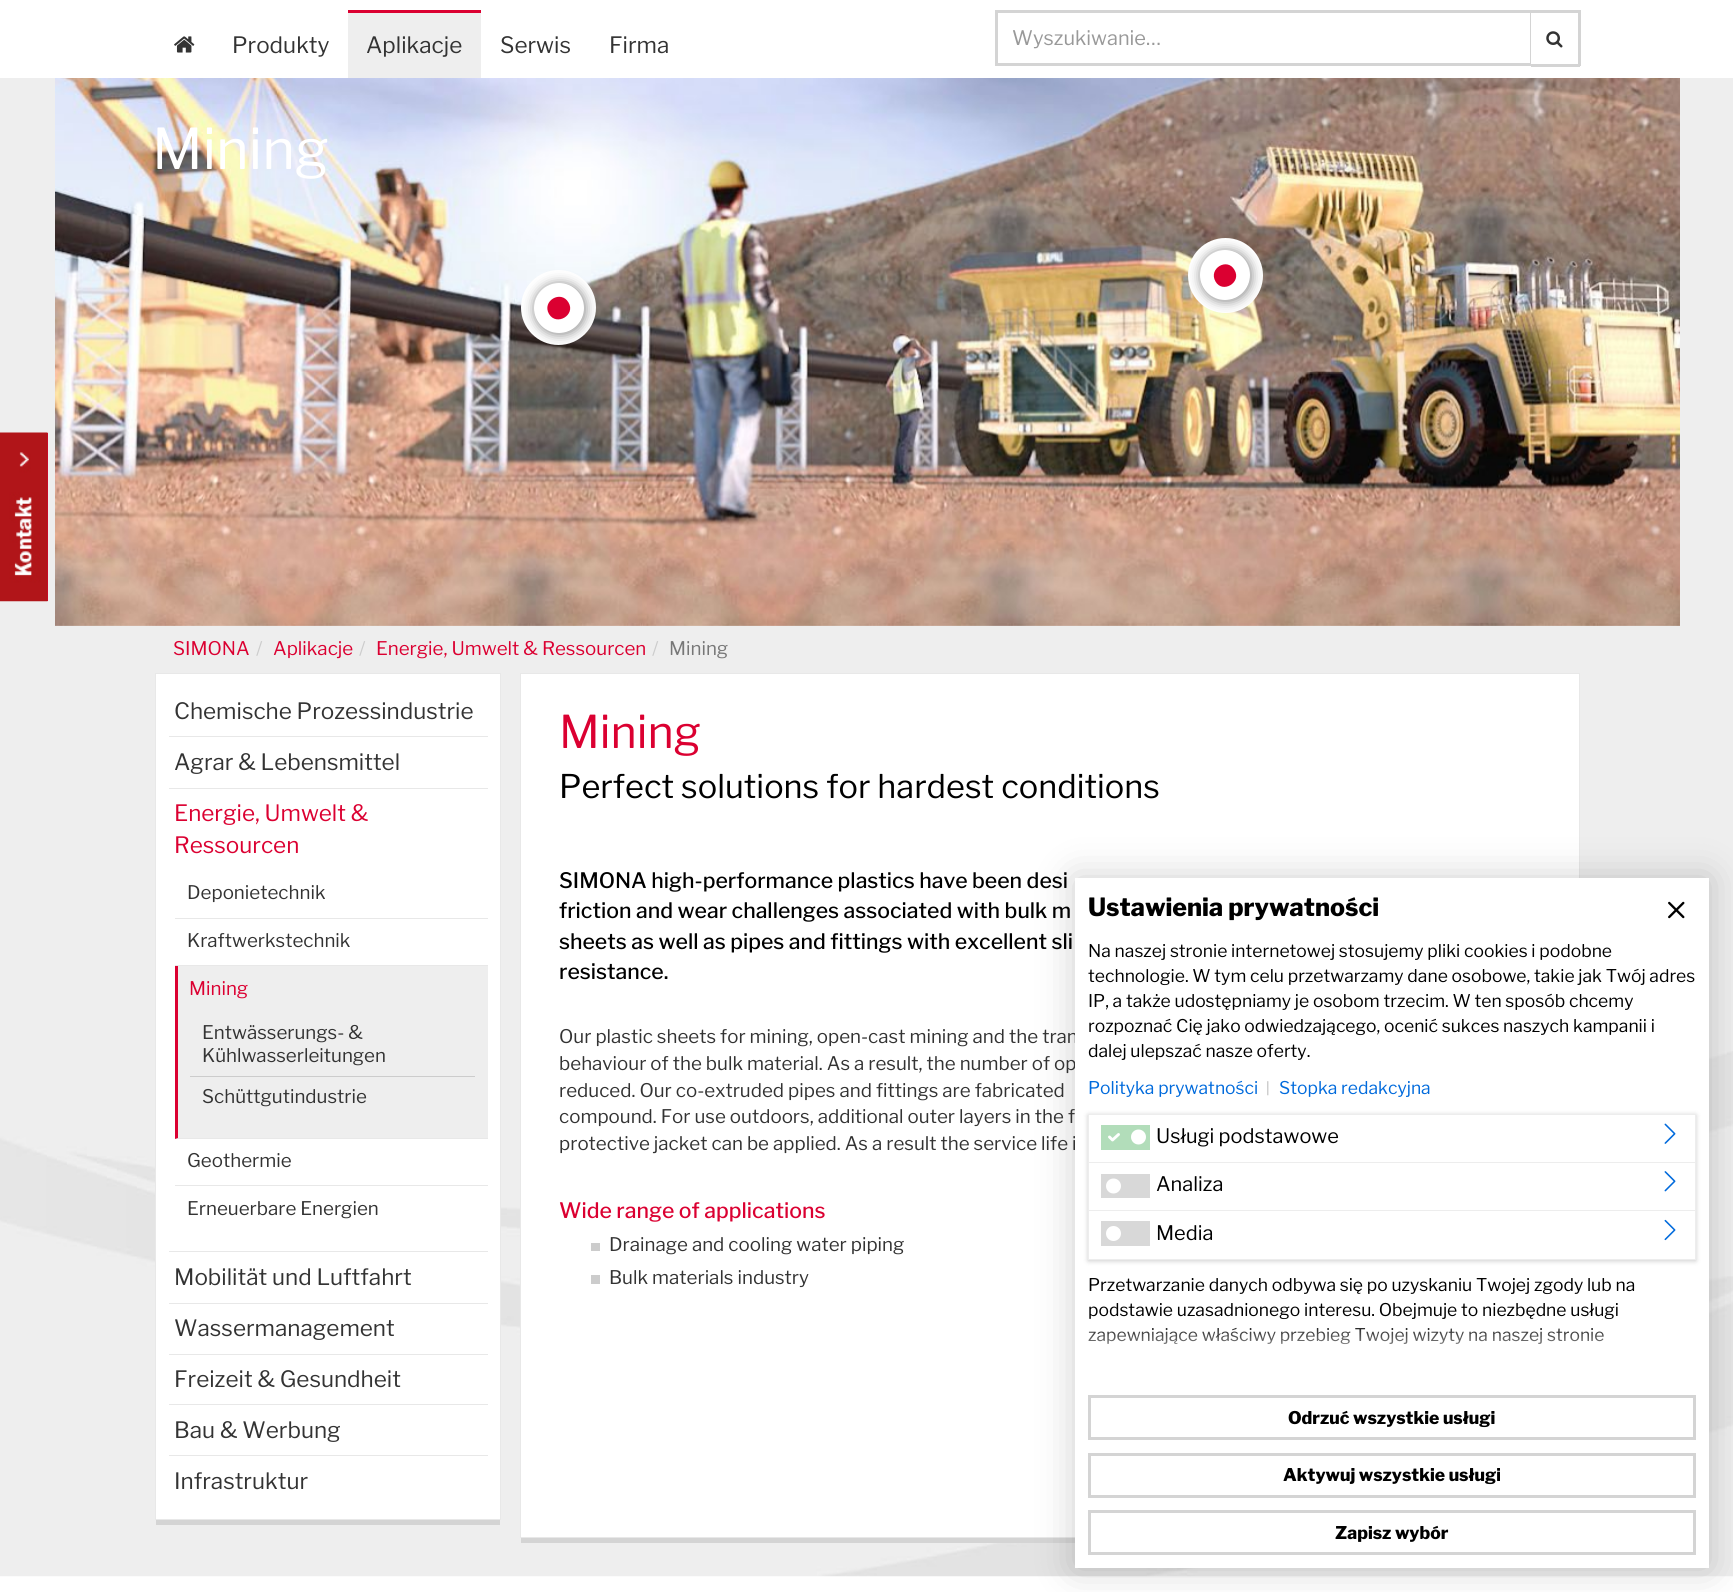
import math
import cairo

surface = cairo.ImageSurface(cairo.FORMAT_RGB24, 1733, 1592)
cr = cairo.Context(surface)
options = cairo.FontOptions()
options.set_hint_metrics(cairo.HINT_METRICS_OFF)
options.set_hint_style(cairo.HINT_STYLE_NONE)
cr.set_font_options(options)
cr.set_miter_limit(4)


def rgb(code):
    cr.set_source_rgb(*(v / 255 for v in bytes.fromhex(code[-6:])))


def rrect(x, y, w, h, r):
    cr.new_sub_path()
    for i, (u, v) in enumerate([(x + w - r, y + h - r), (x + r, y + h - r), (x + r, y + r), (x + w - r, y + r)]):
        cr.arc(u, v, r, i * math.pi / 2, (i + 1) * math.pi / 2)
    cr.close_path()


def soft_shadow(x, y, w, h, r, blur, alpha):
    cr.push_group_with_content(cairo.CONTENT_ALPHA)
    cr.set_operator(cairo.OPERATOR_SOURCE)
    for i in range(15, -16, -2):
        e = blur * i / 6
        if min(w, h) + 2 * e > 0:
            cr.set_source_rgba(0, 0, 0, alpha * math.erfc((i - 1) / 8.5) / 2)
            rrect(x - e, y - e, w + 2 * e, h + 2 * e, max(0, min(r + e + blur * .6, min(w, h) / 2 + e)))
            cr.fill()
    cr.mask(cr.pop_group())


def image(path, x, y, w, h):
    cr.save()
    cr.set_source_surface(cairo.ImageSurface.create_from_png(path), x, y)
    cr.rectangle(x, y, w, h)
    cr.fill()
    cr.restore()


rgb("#ffffff")
cr.paint()
image("img/1.png", 174, 36, 21, 17)
rgb("#eeeeee")
cr.rectangle(348, 13, 133, 65)
cr.fill()
rgb("#db0031")
cr.rectangle(348, 10, 133, 3)
cr.fill()
cr.rectangle(996.5, 11.5, 535, 53)
rgb("#d4d4d4")
cr.set_line_width(3)
cr.stroke()
for x, y, w, h, color in [
    (1531, 13, 2, 51, "#ffffff"),
    (1531, 10, 49, 3, "#d4d4d4"),
    (1578, 10, 3, 56, "#d4d4d4"),
    (1531, 64, 49, 3, "#d4d4d4"),
]:
    rgb(color)
    cr.rectangle(x, y, w, h)
    cr.fill()
image("img/2.png", 1546, 31, 17, 17)
rgb("#eeeeee")
cr.rectangle(0, 78, 1733, 973)
cr.fill()
image("img/3.png", 55, 78, 1625, 548)
rgb("#ffffff")
cr.arc(558.5, 307.5, 37.5, 0, 2 * math.pi)
cr.fill()
rgb("#000000")
soft_shadow(535, 284, 50, 50, 25, 6, 0.5)
rgb("#ffffff")
cr.arc(559, 308, 25, 0, 2 * math.pi)
cr.fill()
rgb("#db0031")
cr.new_path()
cr.move_to(568.5, 302.5)
cr.curve_to(576, 315, 556.5, 326.5, 549, 314)
cr.curve_to(541.5, 301, 561, 289.5, 568.5, 302.5)
cr.close_path()
cr.fill()
rgb("#ffffff")
cr.arc(1225.5, 275.5, 37.5, 0, 2 * math.pi)
cr.fill()
rgb("#000000")
soft_shadow(1201, 251, 50, 50, 25, 6, 0.5)
rgb("#ffffff")
cr.arc(1225, 275, 25, 0, 2 * math.pi)
cr.fill()
rgb("#db0031")
cr.new_path()
cr.move_to(1234.5, 270)
cr.curve_to(1242, 282.5, 1222.5, 294, 1215.5, 281.5)
cr.curve_to(1208, 268.5, 1227.5, 257, 1234.5, 270)
cr.close_path()
cr.fill()
cr.rectangle(47, 433, 1, 168)
cr.fill()
image("img/4.png", 0, 432, 48, 170)
image("img/5.png", 0, 1051, 1733, 526)
rgb("#d4d4d4")
cr.rectangle(156, 1520, 344, 5)
cr.fill()
rgb("#ffffff")
cr.rectangle(155.5, 673.5, 345, 846)
cr.fill_preserve()
rgb("#e8e8e8")
cr.set_line_width(1)
cr.stroke()
for x, y, w, h, color in [
    (169, 736, 319, 1, "#e8e8e8"),
    (169, 788, 319, 1, "#e8e8e8"),
    (169, 1251, 319, 1, "#e8e8e8"),
    (175, 918, 313, 1, "#e8e8e8"),
    (175, 965, 313, 1, "#e8e8e8"),
    (175, 966, 313, 173, "#eeeeee"),
]:
    rgb(color)
    cr.rectangle(x, y, w, h)
    cr.fill()
rgb("#e8e8e8")
cr.new_path()
cr.move_to(488, 1139)
cr.line_to(175, 1139)
cr.line_to(178, 1138)
cr.line_to(488, 1138)
cr.close_path()
cr.fill()
rgb("#db0031")
cr.new_path()
cr.move_to(175, 1139)
cr.line_to(175, 966)
cr.line_to(178, 966)
cr.line_to(178, 1138)
cr.close_path()
cr.fill()
for x, y, w, h, color in [
    (190, 1076, 285, 1, "#cccccc"),
    (175, 1185, 313, 1, "#e8e8e8"),
    (169, 1303, 319, 1, "#e8e8e8"),
    (169, 1354, 319, 1, "#e8e8e8"),
    (169, 1404, 319, 1, "#e8e8e8"),
    (169, 1455, 319, 1, "#e8e8e8"),
    (521, 1538, 554, 5, "#d4d4d4"),
]:
    rgb(color)
    cr.rectangle(x, y, w, h)
    cr.fill()
rgb("#ffffff")
cr.rectangle(520.5, 673.5, 1059, 864)
cr.fill_preserve()
rgb("#e8e8e8")
cr.stroke()
rgb("#cccccc")
cr.rectangle(591, 1243, 9, 8)
cr.fill()
cr.rectangle(591, 1275, 9, 9)
cr.fill()
rgb("#000000")
soft_shadow(1075, 878, 634, 690, 0, 19, 0.2)
cr.select_font_face("Libre Franklin")
cr.set_font_size(22.5)
rgb("#333333")
for x, y, s in [
    (232, 53, "Produkty"),
    (366, 53, "Aplikacje"),
    (500, 53, "Serwis"),
    (609, 53, "Firma"),
]:
    cr.move_to(x, y)
    cr.show_text(s)
cr.set_font_size(20)
rgb("#999999")
cr.move_to(1012, 45)
cr.show_text("Wyszukiwanie…")
cr.set_font_size(56)
rgb("#ffffff")
cr.move_to(152, 169)
cr.show_text("Mining")
cr.set_font_size(18.75)
rgb("#db0031")
cr.move_to(173, 655)
cr.show_text("SIMONA")
rgb("#cccccc")
cr.move_to(256, 655)
cr.show_text("/")
rgb("#db0031")
cr.move_to(273, 655)
cr.show_text("Aplikacje")
rgb("#cccccc")
cr.move_to(359, 655)
cr.show_text("/")
rgb("#db0031")
cr.move_to(376, 655)
cr.show_text("Energie, Umwelt & Ressourcen")
rgb("#cccccc")
cr.move_to(652, 655)
cr.show_text("/")
rgb("#777777")
cr.move_to(669, 655)
cr.show_text("Mining")
cr.set_font_size(22.5)
rgb("#333333")
cr.move_to(174, 719)
cr.show_text("Chemische Prozessindustrie")
cr.move_to(174, 770)
cr.show_text("Agrar & Lebensmittel")
rgb("#db0031")
cr.move_to(174, 821)
cr.show_text("Energie, Umwelt &")
cr.move_to(174, 853)
cr.show_text("Ressourcen")
cr.set_font_size(18.75)
rgb("#333333")
cr.move_to(187, 899)
cr.show_text("Deponietechnik")
cr.move_to(187, 947)
cr.show_text("Kraftwerkstechnik")
rgb("#db0031")
cr.move_to(189, 995)
cr.show_text("Mining")
rgb("#333333")
for x, y, s in [
    (202, 1039, "Entwässerungs- &"),
    (202, 1062, "Kühlwasserleitungen"),
    (202, 1103, "Schüttgutindustrie"),
    (187, 1167, "Geothermie"),
    (187, 1215, "Erneuerbare Energien"),
]:
    cr.move_to(x, y)
    cr.show_text(s)
cr.set_font_size(22.5)
for x, y, s in [
    (174, 1285, "Mobilität und Luftfahrt"),
    (174, 1336, "Wassermanagement"),
    (174, 1387, "Freizeit & Gesundheit"),
    (174, 1438, "Bau & Werbung"),
    (174, 1489, "Infrastruktur"),
]:
    cr.move_to(x, y)
    cr.show_text(s)
cr.set_font_size(45)
rgb("#db0031")
cr.move_to(559, 748)
cr.show_text("Mining")
cr.set_font_size(32.5)
rgb("#000000")
cr.move_to(559, 798)
cr.show_text("Perfect solutions for hardest conditions")
cr.select_font_face("Libre Franklin Medium")
cr.set_font_size(21.25)
for x, y, s in [
    (559, 888, "SIMONA high-performance plastics have been desi"),
    (559, 918, "friction and wear challenges associated with bulk m"),
    (559, 949, "sheets as well as pipes and fittings with excellent sli"),
    (559, 979, "resistance."),
]:
    cr.move_to(x, y)
    cr.show_text(s)
cr.select_font_face("Libre Franklin")
cr.set_font_size(18.75)
rgb("#333333")
for x, y, s in [
    (559, 1043, "Our plastic sheets for mining, open-cast mining and the tran"),
    (559, 1070, "behaviour of the bulk material. As a result, the number of op"),
    (559, 1097, "reduced. Our co-extruded pipes and fittings are fabricated"),
    (559, 1123, "compound. For use outdoors, additional outer layers in the f"),
    (559, 1150, "protective jacket can be applied. As a result the service life i"),
]:
    cr.move_to(x, y)
    cr.show_text(s)
cr.select_font_face("Libre Franklin Medium")
cr.set_font_size(21.25)
rgb("#db0031")
cr.move_to(559, 1218)
cr.show_text("Wide range of applications")
cr.select_font_face("Libre Franklin")
cr.set_font_size(18.75)
rgb("#333333")
cr.move_to(609, 1251)
cr.show_text("Drainage and cooling water piping")
cr.move_to(609, 1284)
cr.show_text("Bulk materials industry")
rgb("#ffffff")
cr.rectangle(1075, 878, 634, 690)
cr.fill()
cr.select_font_face("Libre Franklin ExtraBold")
cr.set_font_size(25)
rgb("#000000")
cr.move_to(1088, 916)
cr.show_text("Ustawienia prywatności")
cr.select_font_face("Libre Franklin")
cr.set_font_size(17.5)
for x, y, s in [
    (1088, 957, "Na naszej stronie internetowej stosujemy pliki cookies i podobne"),
    (1088, 982, "technologie. W tym celu przetwarzamy dane osobowe, takie jak Twój adres"),
    (1088, 1007, "IP, a także udostępniamy je osobom trzecim. W ten sposób chcemy"),
    (1088, 1032, "rozpoznać Cię jako odwiedzającego, ocenić sukces naszych kampanii i"),
    (1088, 1057, "dalej ulepszać nasze oferty."),
]:
    cr.move_to(x, y)
    cr.show_text(s)
rgb("#006adc")
cr.move_to(1088, 1094)
cr.show_text("Polityka prywatności")
cr.set_font_size(14)
rgb("#b3b3b3")
cr.move_to(1266, 1093)
cr.show_text("|")
cr.set_font_size(17.5)
rgb("#006adc")
cr.move_to(1279, 1094)
cr.show_text("Stopka redakcyjna")
cr.save()
cr.set_fill_rule(cairo.FILL_RULE_EVEN_ODD)
cr.new_path()
cr.move_to(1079, 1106)
cr.line_to(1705, 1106)
cr.line_to(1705, 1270)
cr.line_to(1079, 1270)
cr.close_path()
cr.move_to(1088, 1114)
cr.line_to(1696, 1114)
cr.line_to(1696, 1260)
cr.line_to(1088, 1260)
cr.close_path()
cr.clip()
rgb("#000000")
soft_shadow(1088, 1115, 608, 146, 0, 2.5, 0.2)
cr.restore()
cr.rectangle(1088.5, 1114.5, 607, 48)
rgb("#ededed")
cr.stroke()
rgb("#b2ddba")
cr.rectangle(1101, 1125, 49, 25)
cr.fill()
rgb("#ffffff")
cr.arc(1138.5, 1137, 7.5, 0, 2 * math.pi)
cr.fill()
cr.new_path()
cr.move_to(1109.5, 1137)
cr.line_to(1112.5, 1140)
cr.line_to(1118.5, 1134.5)
cr.set_line_width(2.9)
cr.set_line_cap(cairo.LINE_CAP_ROUND)
cr.set_line_join(cairo.LINE_JOIN_ROUND)
cr.stroke()
cr.set_font_size(20)
rgb("#000000")
cr.move_to(1156, 1143)
cr.show_text("Usługi podstawowe")
image("img/6.png", 1664, 1123, 12, 21)
for x, y, w, h, color in [
    (1695, 1163, 1, 97, "#ededed"),
    (1088, 1210, 608, 1, "#ededed"),
    (1088, 1163, 1, 48, "#ededed"),
    (1101, 1174, 49, 24, "#d8d8d8"),
]:
    rgb(color)
    cr.rectangle(x, y, w, h)
    cr.fill()
rgb("#ffffff")
cr.arc(1113.5, 1186, 7.5, 0, 2 * math.pi)
cr.fill()
rgb("#000000")
cr.move_to(1156, 1191)
cr.show_text("Analiza")
image("img/7.png", 1664, 1171, 12, 21)
for x, y, w, h, color in [
    (1088, 1259, 608, 1, "#ededed"),
    (1088, 1211, 1, 49, "#ededed"),
    (1101, 1221, 49, 25, "#d8d8d8"),
]:
    rgb(color)
    cr.rectangle(x, y, w, h)
    cr.fill()
rgb("#ffffff")
cr.arc(1113.5, 1233.5, 7.5, 0, 2 * math.pi)
cr.fill()
cr.new_path()
cr.move_to(1109.5, 1233.5)
cr.line_to(1112.5, 1236.5)
cr.line_to(1118.5, 1230.5)
cr.stroke()
rgb("#000000")
cr.move_to(1156, 1240)
cr.show_text("Media")
image("img/8.png", 1664, 1219, 12, 22)
cr.set_font_size(17.5)
for x, y, s in [
    (1088, 1291, "Przetwarzanie danych odbywa się po uzyskaniu Twojej zgody lub na"),
    (1088, 1316, "podstawie uzasadnionego interesu. Obejmuje to niezbędne usługi"),
    (1088, 1341, "zapewniające właściwy przebieg Twojej wizyty na naszej stronie"),
]:
    cr.move_to(x, y)
    cr.show_text(s)
gradient = cairo.LinearGradient(1385, 1320, 1385, 1370)
gradient.add_color_stop_rgba(0, 1, 1, 1, 0)
gradient.add_color_stop_rgba(1, 1, 1, 1, 1)
cr.set_source(gradient)
cr.rectangle(1088, 1328, 516, 17)
cr.fill()
cr.rectangle(1089.5, 1396.5, 605, 42)
rgb("#d4d4d4")
cr.set_line_width(3)
cr.set_line_cap(cairo.LINE_CAP_BUTT)
cr.set_line_join(cairo.LINE_JOIN_MITER)
cr.stroke()
cr.select_font_face("Libre Franklin ExtraBold")
rgb("#000000")
cr.move_to(1288, 1424)
cr.show_text("Odrzuć wszystkie usługi")
cr.rectangle(1089.5, 1454.5, 605, 42)
rgb("#d4d4d4")
cr.stroke()
rgb("#000000")
cr.move_to(1283, 1481)
cr.show_text("Aktywuj wszystkie usługi")
cr.rectangle(1089.5, 1511.5, 605, 42)
rgb("#d4d4d4")
cr.stroke()
rgb("#000000")
cr.move_to(1335, 1539)
cr.show_text("Zapisz wybór")
image("img/9.png", 1668, 901, 17, 18)
surface.write_to_png("page.png")
